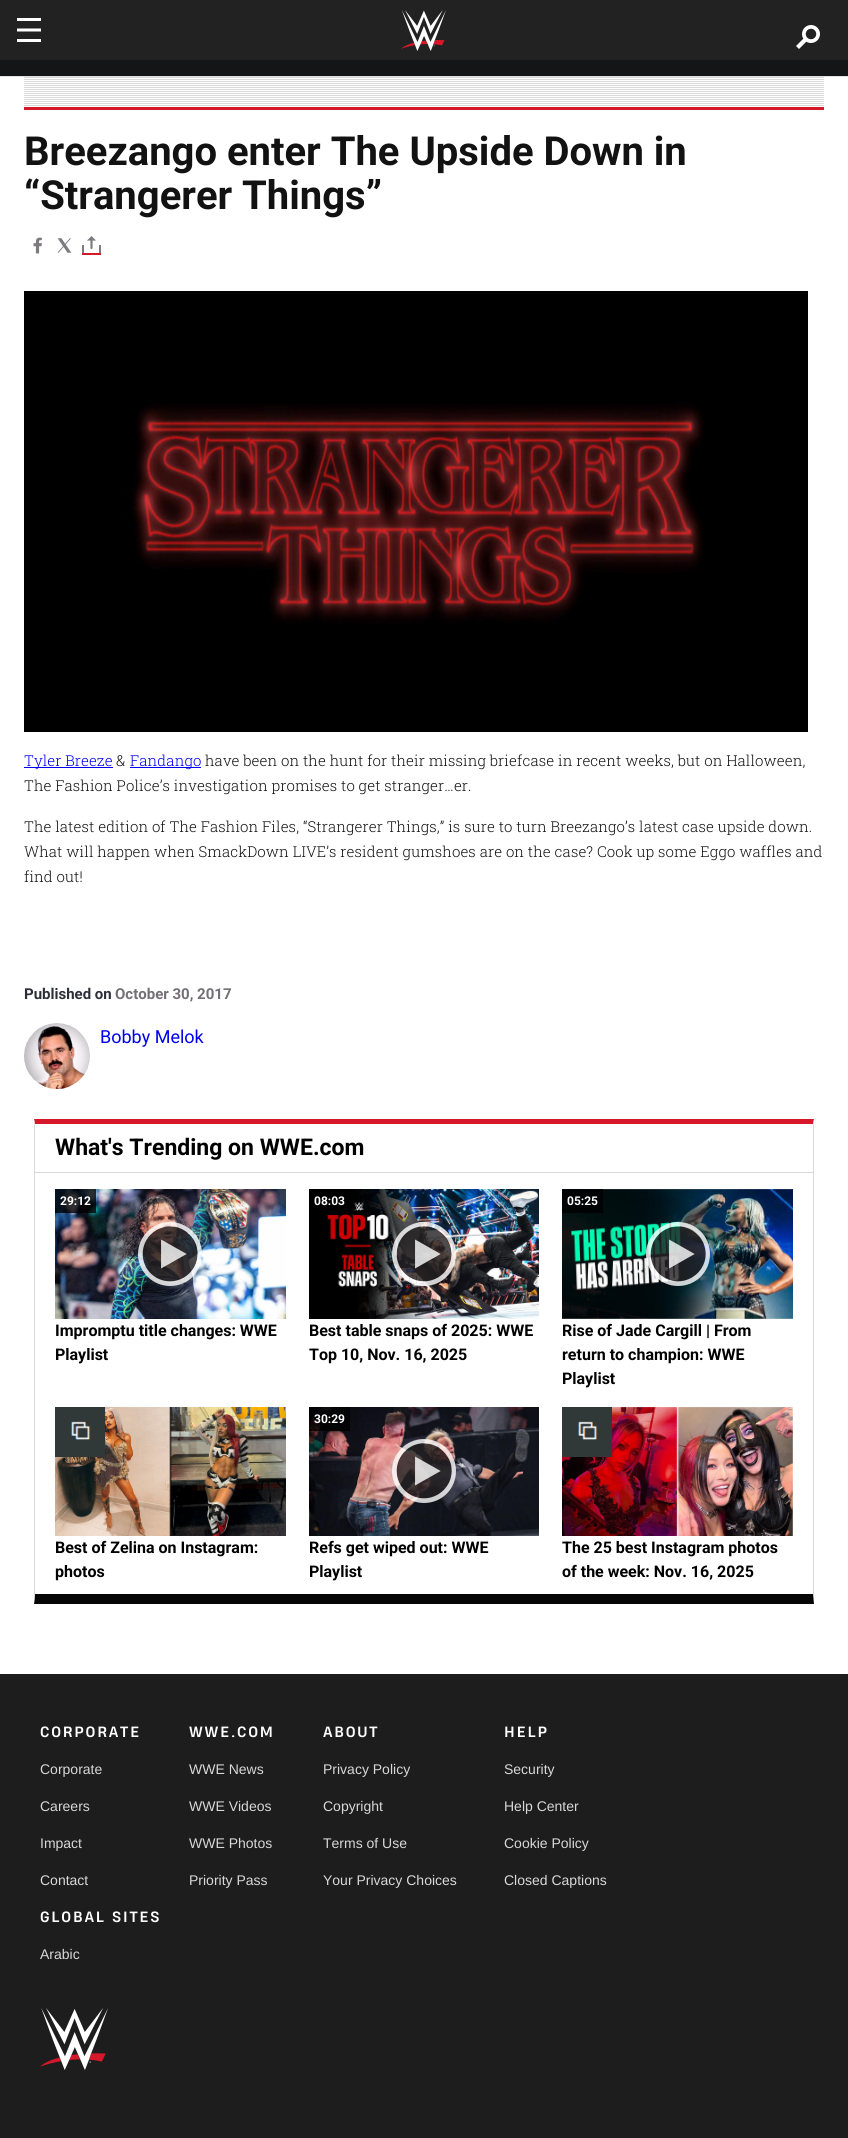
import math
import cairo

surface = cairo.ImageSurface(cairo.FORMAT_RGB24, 848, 2138)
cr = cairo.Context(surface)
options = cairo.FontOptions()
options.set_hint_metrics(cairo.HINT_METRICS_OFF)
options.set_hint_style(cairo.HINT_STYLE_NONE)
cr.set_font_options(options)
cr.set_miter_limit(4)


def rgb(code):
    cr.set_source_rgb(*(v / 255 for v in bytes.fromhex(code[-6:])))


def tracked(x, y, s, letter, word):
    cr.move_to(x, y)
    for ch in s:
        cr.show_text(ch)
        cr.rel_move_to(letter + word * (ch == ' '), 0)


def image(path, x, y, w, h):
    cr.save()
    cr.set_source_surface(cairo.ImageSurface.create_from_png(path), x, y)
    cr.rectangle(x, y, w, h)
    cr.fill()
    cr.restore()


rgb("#ffffff")
cr.paint()
rgb("#222222")
cr.rectangle(0, 0, 848, 60)
cr.fill()
image("img/1.png", 17, 18, 24, 24)
image("img/2.png", 401, 10, 45, 41)
image("img/3.png", 796, 25, 24, 24)
rgb("#141516")
cr.rectangle(0, 60, 848, 16)
cr.fill()
rgb("#e2e2e2")
cr.rectangle(0, 76, 848, 1)
cr.fill()
image("img/4.png", 24, 77, 800, 30)
rgb("#d7182a")
cr.rectangle(24, 107, 800, 3)
cr.fill()
image("img/5.png", 33, 237, 9, 17)
image("img/6.png", 57, 238, 15, 15)
image("img/7.png", 82, 236, 19, 19)
image("img/8.png", 24, 291, 784, 441)
rgb("#0000ee")
cr.rectangle(24, 767, 89, 1)
cr.fill()
cr.rectangle(130, 767, 71, 1)
cr.fill()
image("img/9.png", 24, 1023, 66, 66)
rgb("#d7182a")
cr.new_path()
cr.move_to(34, 1119)
cr.line_to(814, 1119)
cr.line_to(813, 1124)
cr.line_to(35, 1124)
cr.close_path()
cr.fill()
rgb("#d9d9d9")
cr.new_path()
cr.move_to(814, 1119)
cr.line_to(814, 1604)
cr.line_to(813, 1594)
cr.line_to(813, 1124)
cr.close_path()
cr.fill()
rgb("#060606")
cr.new_path()
cr.move_to(814, 1604)
cr.line_to(34, 1604)
cr.line_to(35, 1594)
cr.line_to(813, 1594)
cr.close_path()
cr.fill()
rgb("#d9d9d9")
cr.new_path()
cr.move_to(34, 1604)
cr.line_to(34, 1119)
cr.line_to(35, 1124)
cr.line_to(35, 1594)
cr.close_path()
cr.fill()
cr.rectangle(35, 1172, 778, 1)
cr.fill()
image("img/10.png", 55, 1189, 231, 130)
image("img/11.png", 138, 1222, 64, 64)
cr.set_source_rgba(0, 0, 0, 0.8)
cr.rectangle(55, 1189, 41, 24)
cr.fill()
image("img/12.png", 309, 1189, 230, 130)
image("img/13.png", 392, 1222, 64, 64)
image("img/14.png", 562, 1189, 231, 130)
image("img/15.png", 646, 1222, 64, 64)
cr.rectangle(562, 1189, 41, 24)
cr.fill()
image("img/16.png", 55, 1407, 231, 129)
rgb("#313838")
cr.rectangle(55, 1407, 50, 50)
cr.fill()
image("img/17.png", 70, 1421, 21, 19)
image("img/18.png", 309, 1407, 230, 129)
image("img/19.png", 392, 1439, 64, 64)
cr.set_source_rgba(0, 0, 0, 0.8)
cr.rectangle(309, 1407, 41, 24)
cr.fill()
image("img/20.png", 562, 1407, 231, 129)
rgb("#313838")
cr.rectangle(562, 1407, 50, 50)
cr.fill()
image("img/17.png", 577, 1421, 21, 19)
rgb("#1d1d1d")
cr.rectangle(0, 1674, 848, 464)
cr.fill()
image("img/21.png", 40, 2008, 68, 62)
cr.select_font_face("Roboto", cairo.FONT_SLANT_NORMAL, cairo.FONT_WEIGHT_BOLD)
cr.set_font_size(40)
rgb("#121212")
cr.move_to(24, 165)
cr.show_text("Breezango enter The Upside Down in")
cr.move_to(24, 209)
cr.show_text("“Strangerer Things”")
cr.select_font_face("Roboto Slab Light")
cr.set_font_size(15)
rgb("#0000ee")
tracked(24, 766, "Tyler Breeze", 0.1, 0)
rgb("#121212")
tracked(116, 766, "&", 0.1, 0)
rgb("#0000ee")
tracked(130, 766, "Fandango", 0.1, 0)
rgb("#121212")
for x, y, s in [
    (205, 766, "have been on the hunt for their missing briefcase in recent weeks, but on Halloween,"),
    (24, 791, "The Fashion Police’s investigation promises to get stranger…er."),
    (24, 832, "The latest edition of The Fashion Files, “Strangerer Things,” is sure to turn Breezango’s latest case upside down."),
    (24, 857, "What will happen when SmackDown LIVE’s resident gumshoes are on the case? Cook up some Eggo waffles and"),
    (24, 882, "find out!"),
]:
    tracked(x, y, s, 0.1, 0)
cr.select_font_face("Roboto", cairo.FONT_SLANT_NORMAL, cairo.FONT_WEIGHT_BOLD)
rgb("#2c2f37")
cr.move_to(24, 999)
cr.show_text("Published on")
rgb("#727075")
cr.move_to(115, 999)
cr.show_text("October 30, 2017")
cr.select_font_face("Roboto")
cr.set_font_size(18)
rgb("#0000ee")
cr.move_to(100, 1043)
cr.show_text("Bobby Melok")
cr.select_font_face("Roboto", cairo.FONT_SLANT_NORMAL, cairo.FONT_WEIGHT_BOLD)
cr.set_font_size(23)
rgb("#000000")
cr.move_to(55, 1155)
cr.show_text("What's Trending on WWE.com")
cr.set_font_size(12)
rgb("#ffffff")
cr.move_to(60, 1205)
cr.show_text("29:12")
cr.set_font_size(16)
rgb("#000000")
cr.move_to(55, 1336)
cr.show_text("Impromptu title changes: WWE")
cr.move_to(55, 1360)
cr.show_text("Playlist")
cr.set_font_size(12)
rgb("#ffffff")
cr.move_to(314, 1205)
cr.show_text("08:03")
cr.set_font_size(16)
rgb("#000000")
cr.move_to(309, 1336)
cr.show_text("Best table snaps of 2025: WWE")
cr.move_to(309, 1360)
cr.show_text("Top 10, Nov. 16, 2025")
cr.set_font_size(12)
rgb("#ffffff")
cr.move_to(567, 1205)
cr.show_text("05:25")
cr.set_font_size(16)
rgb("#000000")
for x, y, s in [
    (562, 1336, "Rise of Jade Cargill | From"),
    (562, 1360, "return to champion: WWE"),
    (562, 1384, "Playlist"),
    (55, 1553, "Best of Zelina on Instagram:"),
    (55, 1577, "photos"),
]:
    cr.move_to(x, y)
    cr.show_text(s)
cr.set_font_size(12)
rgb("#ffffff")
cr.move_to(314, 1423)
cr.show_text("30:29")
cr.set_font_size(16)
rgb("#000000")
for x, y, s in [
    (309, 1553, "Refs get wiped out: WWE"),
    (309, 1577, "Playlist"),
    (562, 1553, "The 25 best Instagram photos"),
    (562, 1577, "of the week: Nov. 16, 2025"),
]:
    cr.move_to(x, y)
    cr.show_text(s)
cr.select_font_face("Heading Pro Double", cairo.FONT_SLANT_NORMAL, cairo.FONT_WEIGHT_BOLD)
cr.set_font_size(14)
rgb("#ffffff")
tracked(40, 1737, "CORPORATE", 1.75, 0)
cr.select_font_face("Liberation Sans")
rgb("#d8d8d8")
for x, y, s in [
    (40, 1774, "Corporate"),
    (40, 1811, "Careers"),
    (40, 1848, "Impact"),
    (40, 1885, "Contact"),
]:
    cr.move_to(x, y)
    cr.show_text(s)
cr.select_font_face("Heading Pro Double", cairo.FONT_SLANT_NORMAL, cairo.FONT_WEIGHT_BOLD)
rgb("#ffffff")
tracked(189, 1737, "WWE.COM", 1.75, 0)
cr.select_font_face("Liberation Sans")
rgb("#d8d8d8")
for x, y, s in [
    (189, 1774, "WWE News"),
    (189, 1811, "WWE Videos"),
    (189, 1848, "WWE Photos"),
    (189, 1885, "Priority Pass"),
]:
    cr.move_to(x, y)
    cr.show_text(s)
cr.select_font_face("Heading Pro Double", cairo.FONT_SLANT_NORMAL, cairo.FONT_WEIGHT_BOLD)
rgb("#ffffff")
tracked(323, 1737, "ABOUT", 1.75, 0)
cr.select_font_face("Liberation Sans")
rgb("#d8d8d8")
for x, y, s in [
    (323, 1774, "Privacy Policy"),
    (323, 1811, "Copyright"),
    (323, 1848, "Terms of Use"),
    (323, 1885, "Your Privacy Choices"),
]:
    cr.move_to(x, y)
    cr.show_text(s)
cr.select_font_face("Heading Pro Double", cairo.FONT_SLANT_NORMAL, cairo.FONT_WEIGHT_BOLD)
rgb("#ffffff")
tracked(504, 1737, "HELP", 1.75, 0)
cr.select_font_face("Liberation Sans")
rgb("#d8d8d8")
for x, y, s in [
    (504, 1774, "Security"),
    (504, 1811, "Help Center"),
    (504, 1848, "Cookie Policy"),
    (504, 1885, "Closed Captions"),
]:
    cr.move_to(x, y)
    cr.show_text(s)
cr.select_font_face("Heading Pro Double", cairo.FONT_SLANT_NORMAL, cairo.FONT_WEIGHT_BOLD)
rgb("#ffffff")
tracked(40, 1922, "GLOBAL SITES", 1.75, 0)
cr.select_font_face("Liberation Sans")
rgb("#d8d8d8")
cr.move_to(40, 1959)
cr.show_text("Arabic")
surface.write_to_png("page.png")
